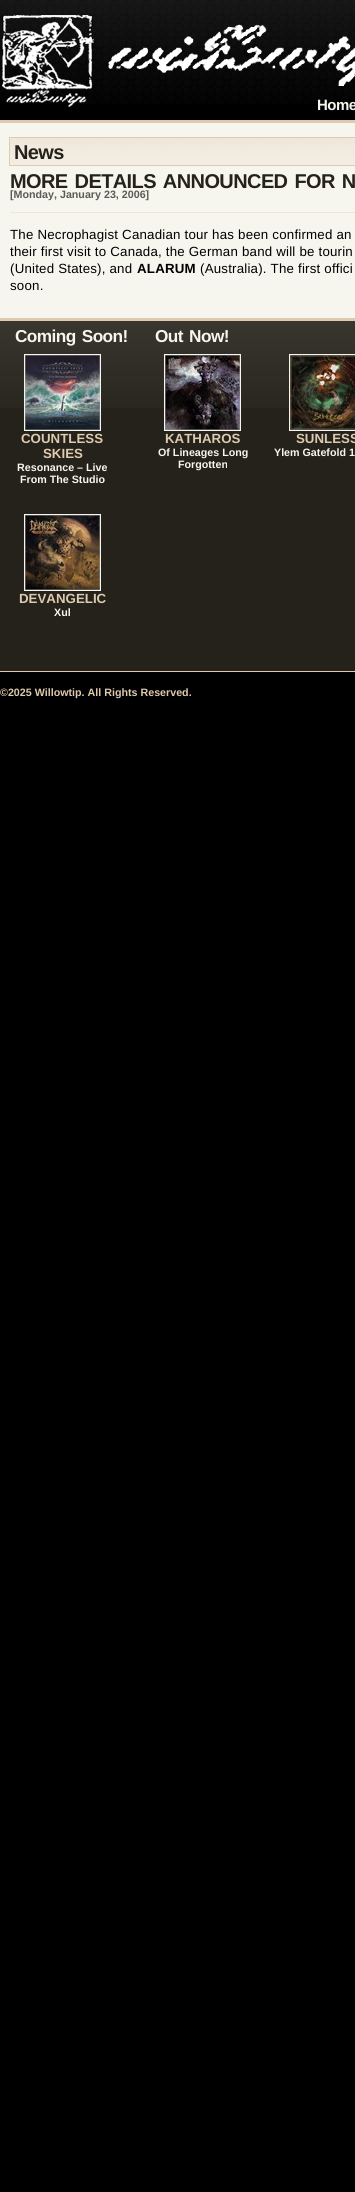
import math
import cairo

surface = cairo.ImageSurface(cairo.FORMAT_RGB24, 355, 2192)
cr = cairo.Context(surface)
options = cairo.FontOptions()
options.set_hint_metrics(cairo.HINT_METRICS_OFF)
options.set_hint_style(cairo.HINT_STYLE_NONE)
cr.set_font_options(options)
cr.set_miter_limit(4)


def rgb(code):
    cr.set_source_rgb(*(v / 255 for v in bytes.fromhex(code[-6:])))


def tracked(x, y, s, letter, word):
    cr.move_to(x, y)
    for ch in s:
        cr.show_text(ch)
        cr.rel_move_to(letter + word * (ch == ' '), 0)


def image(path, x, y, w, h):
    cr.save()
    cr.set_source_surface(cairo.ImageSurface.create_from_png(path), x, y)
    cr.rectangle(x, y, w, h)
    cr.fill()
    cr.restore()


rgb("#000000")
cr.paint()
image("img/1.png", 0, 0, 355, 104)
rgb("#decaae")
cr.rectangle(0, 120, 355, 3)
cr.fill()
image("img/2.png", 2, 15, 353, 92)
rgb("#f6f6ee")
cr.rectangle(0, 123, 355, 195)
cr.fill()
image("img/3.png", 10, 138, 345, 27)
cr.rectangle(9.5, 137.5, 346, 28)
rgb("#decaae")
cr.set_line_width(1)
cr.stroke()
rgb("#efe5d7")
cr.rectangle(10, 212, 345, 1)
cr.fill()
rgb("#25221b")
cr.rectangle(0, 408, 355, 263)
cr.fill()
image("img/4.png", 0, 321, 355, 87)
rgb("#decaae")
cr.rectangle(0, 318, 355, 3)
cr.fill()
cr.rectangle(24.5, 354.5, 76, 76)
rgb("#f6f6ee")
cr.stroke()
image("img/5.png", 25, 355, 75, 75)
cr.rectangle(24.5, 514.5, 76, 76)
cr.stroke()
image("img/6.png", 25, 515, 75, 75)
cr.rectangle(164.5, 354.5, 76, 76)
cr.stroke()
image("img/7.png", 165, 355, 75, 75)
cr.rectangle(289.5, 354.5, 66, 76)
cr.stroke()
image("img/8.png", 290, 355, 65, 75)
rgb("#decaae")
cr.rectangle(0, 671, 355, 1)
cr.fill()
cr.select_font_face("Liberation Sans", cairo.FONT_SLANT_NORMAL, cairo.FONT_WEIGHT_BOLD)
cr.set_font_size(15)
rgb("#f6f6ee")
tracked(317, 110, "Home", -0.5, 0)
cr.set_font_size(20)
rgb("#25221b")
tracked(14, 159, "News", -0.6, 0)
tracked(10, 188, "MORE DETAILS ANNOUNCED FOR N", -0.6, 2)
cr.set_font_size(10.7)
rgb("#5c5a54")
cr.move_to(10, 198)
cr.show_text("[Monday, January 23, 2006]")
cr.select_font_face("Liberation Sans")
cr.set_font_size(13.3)
rgb("#000000")
for x, y, s in [
    (10, 239, "The Necrophagist Canadian tour has been confirmed an"),
    (10, 256, "their first visit to Canada, the German band will be tourin"),
    (10, 273, "(United States), and"),
]:
    tracked(x, y, s, 0.2, 0)
cr.select_font_face("Liberation Sans", cairo.FONT_SLANT_NORMAL, cairo.FONT_WEIGHT_BOLD)
tracked(137, 273, "ALARUM", 0.2, 0)
cr.select_font_face("Liberation Sans")
tracked(200, 273, "(Australia). The first offici", 0.2, 0)
tracked(10, 290, "soon.", 0.2, 0)
cr.select_font_face("Liberation Sans", cairo.FONT_SLANT_NORMAL, cairo.FONT_WEIGHT_BOLD)
cr.set_font_size(17.25)
rgb("#f6f6ee")
tracked(15, 342, "Coming Soon!", -0.6, 2)
cr.set_font_size(13.3)
rgb("#decaae")
cr.move_to(21, 443)
cr.show_text("COUNTLESS")
cr.move_to(43, 458)
cr.show_text("SKIES")
cr.set_font_size(10.7)
rgb("#f6f6ee")
cr.move_to(17, 471)
cr.show_text("Resonance – Live")
cr.move_to(20, 483)
cr.show_text("From The Studio")
cr.set_font_size(13.3)
rgb("#decaae")
cr.move_to(19, 603)
cr.show_text("DEVANGELIC")
cr.set_font_size(10.7)
rgb("#f6f6ee")
cr.move_to(54, 616)
cr.show_text("Xul")
cr.set_font_size(17.25)
tracked(155, 342, "Out Now!", -0.6, 2)
cr.set_font_size(13.3)
rgb("#decaae")
cr.move_to(165, 443)
cr.show_text("KATHAROS")
cr.set_font_size(10.7)
rgb("#f6f6ee")
cr.move_to(158, 456)
cr.show_text("Of Lineages Long")
cr.move_to(178, 468)
cr.show_text("Forgotten")
cr.set_font_size(13.3)
rgb("#decaae")
cr.move_to(296, 443)
cr.show_text("SUNLESS")
cr.set_font_size(10.7)
rgb("#f6f6ee")
cr.move_to(274, 456)
cr.show_text("Ylem Gatefold 1")
rgb("#decaae")
cr.move_to(0, 696)
cr.show_text("©2025 Willowtip. All Rights Reserved.")
surface.write_to_png("page.png")
